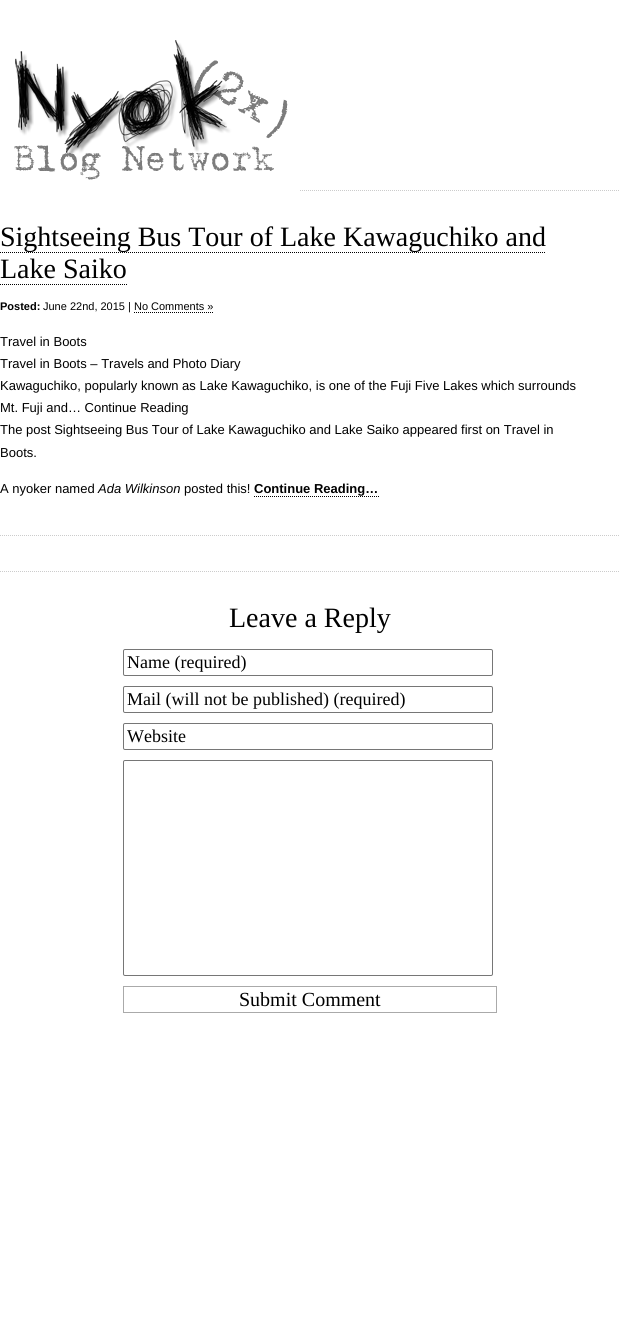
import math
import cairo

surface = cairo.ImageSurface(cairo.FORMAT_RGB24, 619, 1335)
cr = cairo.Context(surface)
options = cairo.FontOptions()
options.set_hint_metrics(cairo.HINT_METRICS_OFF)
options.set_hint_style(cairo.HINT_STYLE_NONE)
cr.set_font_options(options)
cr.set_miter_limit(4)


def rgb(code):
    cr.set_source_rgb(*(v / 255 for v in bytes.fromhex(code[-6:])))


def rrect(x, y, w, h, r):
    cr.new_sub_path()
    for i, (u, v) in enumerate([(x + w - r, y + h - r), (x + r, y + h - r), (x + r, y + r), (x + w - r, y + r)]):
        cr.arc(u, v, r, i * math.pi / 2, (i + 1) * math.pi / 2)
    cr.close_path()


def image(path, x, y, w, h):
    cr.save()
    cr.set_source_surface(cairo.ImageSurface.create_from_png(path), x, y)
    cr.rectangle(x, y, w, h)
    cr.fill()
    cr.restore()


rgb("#ffffff")
cr.paint()
cr.new_path()
cr.move_to(0, 190.5)
cr.line_to(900, 190.5)
rgb("#cccccc")
cr.set_line_width(1)
cr.set_dash([1, 1])
cr.stroke()
image("img/1.png", 14, 40, 274, 140)
rgb("#ffffff")
cr.rectangle(0, 190, 299, 1)
cr.fill()
cr.new_path()
cr.move_to(0, 252.5)
cr.line_to(546, 252.5)
rgb("#000000")
cr.stroke()
cr.new_path()
cr.move_to(0, 284.5)
cr.line_to(127, 284.5)
cr.stroke()
cr.new_path()
cr.move_to(134, 312.5)
cr.line_to(214, 312.5)
cr.stroke()
cr.new_path()
cr.move_to(254, 496.5)
cr.line_to(379, 496.5)
cr.stroke()
cr.new_path()
cr.move_to(0, 535.5)
cr.line_to(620, 535.5)
rgb("#cccccc")
cr.stroke()
cr.new_path()
cr.move_to(0, 571.5)
cr.line_to(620, 571.5)
cr.stroke()
rrect(123.5, 649.5, 369, 26, 1.5)
rgb("#767676")
cr.set_dash([])
cr.stroke()
rrect(123.5, 686.5, 369, 26, 1.5)
cr.stroke()
rrect(123.5, 723.5, 369, 26, 1.5)
cr.stroke()
rrect(123.5, 760.5, 369, 215, 1.5)
cr.stroke()
cr.rectangle(123.5, 986.5, 373, 26)
rgb("#aaaaaa")
cr.stroke()
cr.select_font_face("Liberation Serif")
cr.set_font_size(28)
rgb("#000000")
cr.move_to(0, 246)
cr.show_text("Sightseeing Bus Tour of Lake Kawaguchiko and")
cr.move_to(0, 278)
cr.show_text("Lake Saiko")
cr.select_font_face("Liberation Sans", cairo.FONT_SLANT_NORMAL, cairo.FONT_WEIGHT_BOLD)
cr.set_font_size(11)
cr.move_to(0, 310)
cr.show_text("Posted:")
cr.select_font_face("Liberation Sans")
cr.move_to(43, 310)
cr.show_text("June 22nd, 2015 | No Comments »")
cr.set_font_size(13)
for x, y, s in [
    (0, 346, "Travel in Boots"),
    (0, 368, "Travel in Boots – Travels and Photo Diary"),
    (0, 390, "Kawaguchiko, popularly known as Lake Kawaguchiko, is one of the Fuji Five Lakes which surrounds"),
    (0, 412, "Mt. Fuji and… Continue Reading"),
    (0, 434, "The post Sightseeing Bus Tour of Lake Kawaguchiko and Lake Saiko appeared first on Travel in"),
    (0, 457, "Boots."),
    (0, 493, "A nyoker named"),
]:
    cr.move_to(x, y)
    cr.show_text(s)
cr.select_font_face("Liberation Sans", cairo.FONT_SLANT_ITALIC)
cr.move_to(98, 493)
cr.show_text("Ada Wilkinson")
cr.select_font_face("Liberation Sans")
cr.move_to(184, 493)
cr.show_text("posted this!")
cr.select_font_face("Liberation Sans", cairo.FONT_SLANT_NORMAL, cairo.FONT_WEIGHT_BOLD)
cr.move_to(254, 493)
cr.show_text("Continue Reading…")
cr.select_font_face("Liberation Serif")
cr.set_font_size(28)
cr.move_to(229, 627)
cr.show_text("Leave a Reply")
cr.set_font_size(18)
for x, y, s in [
    (127, 668, "Name (required)"),
    (127, 705, "Mail (will not be published) (required)"),
    (127, 742, "Website"),
]:
    cr.move_to(x, y)
    cr.show_text(s)
cr.set_font_size(20)
cr.move_to(239, 1006)
cr.show_text("Submit Comment")
surface.write_to_png("page.png")
